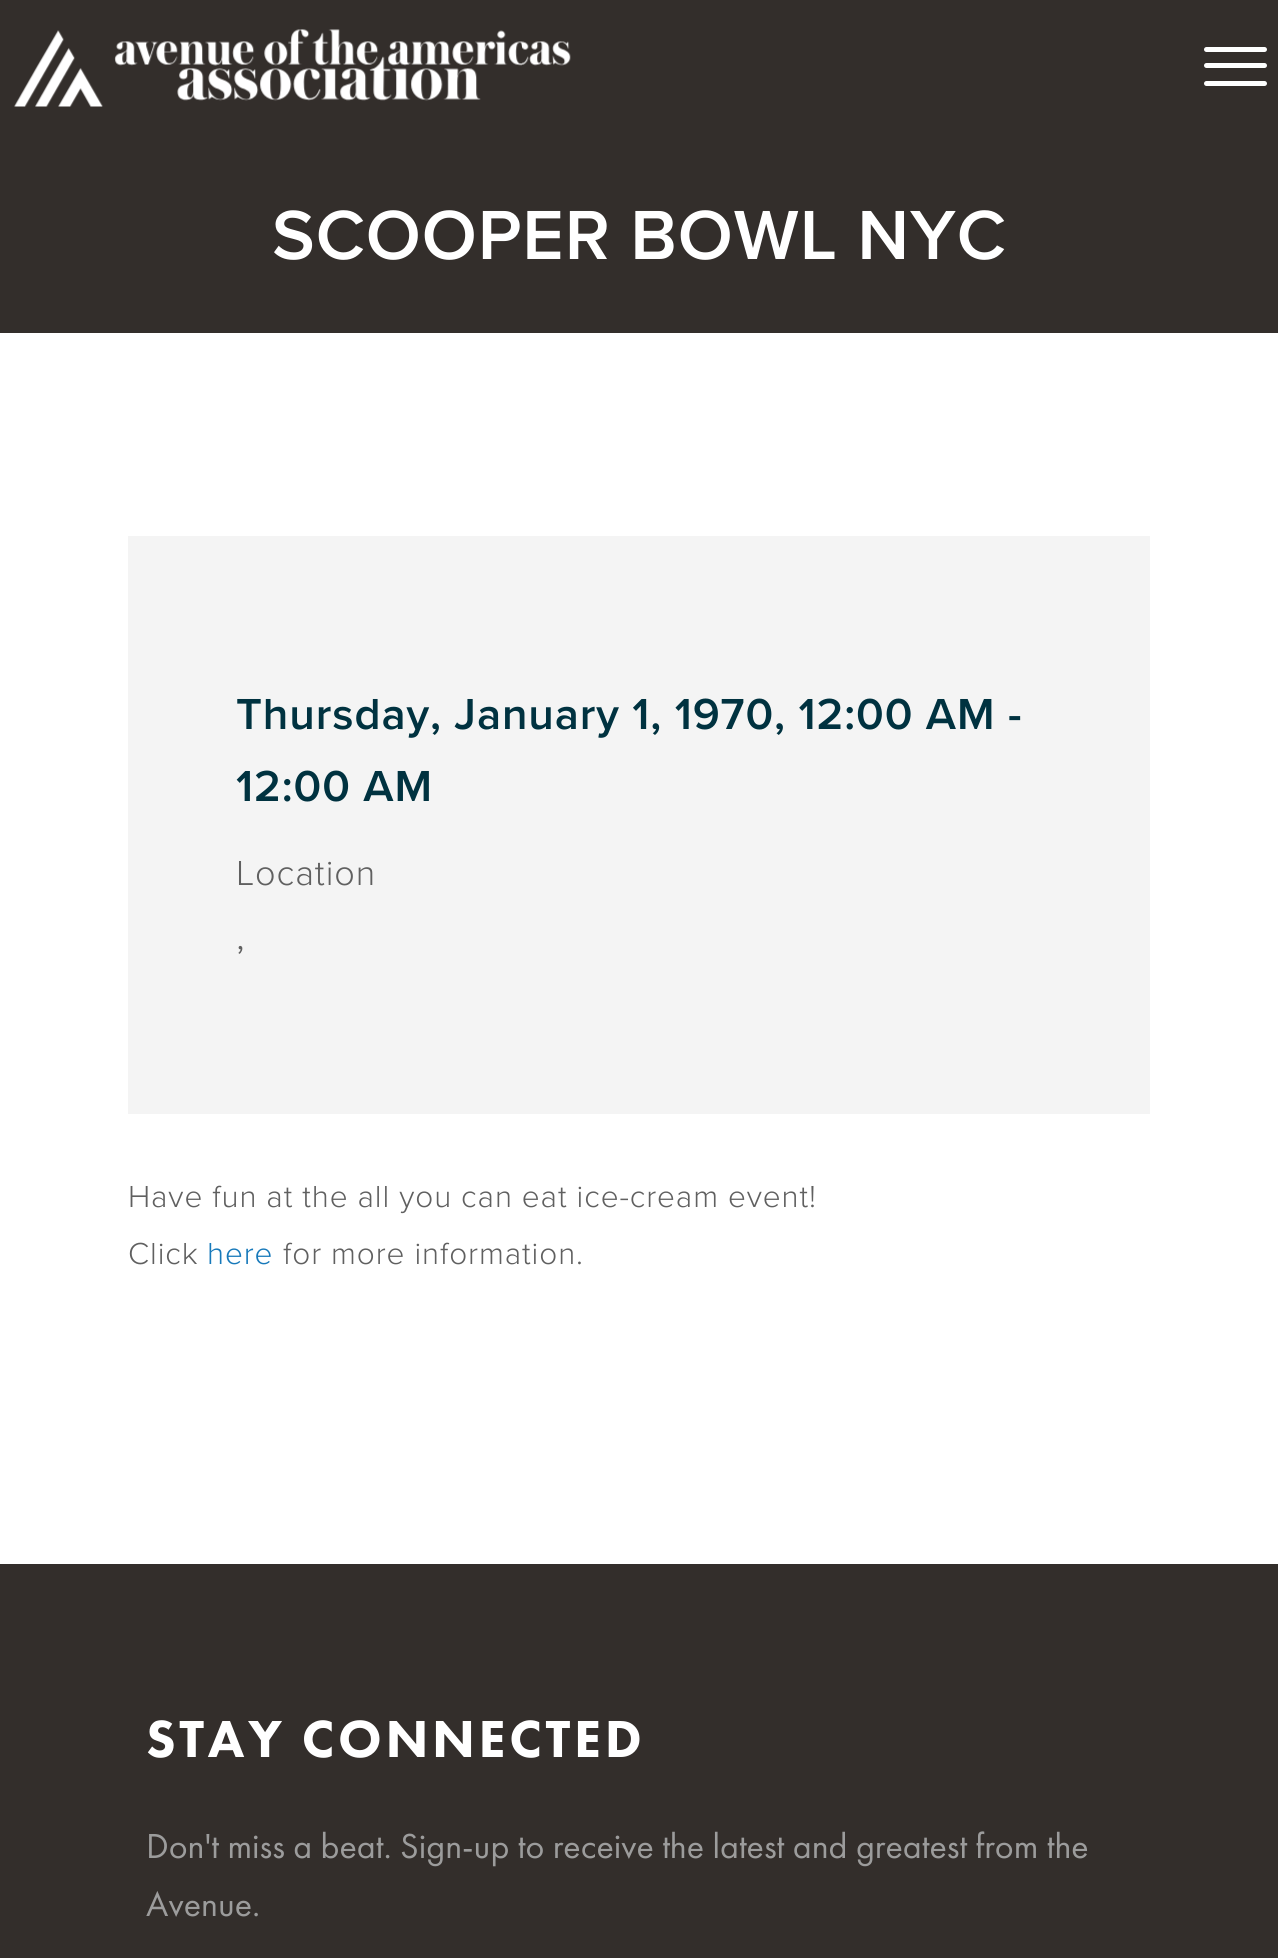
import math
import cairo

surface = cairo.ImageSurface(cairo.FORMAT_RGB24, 1278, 1958)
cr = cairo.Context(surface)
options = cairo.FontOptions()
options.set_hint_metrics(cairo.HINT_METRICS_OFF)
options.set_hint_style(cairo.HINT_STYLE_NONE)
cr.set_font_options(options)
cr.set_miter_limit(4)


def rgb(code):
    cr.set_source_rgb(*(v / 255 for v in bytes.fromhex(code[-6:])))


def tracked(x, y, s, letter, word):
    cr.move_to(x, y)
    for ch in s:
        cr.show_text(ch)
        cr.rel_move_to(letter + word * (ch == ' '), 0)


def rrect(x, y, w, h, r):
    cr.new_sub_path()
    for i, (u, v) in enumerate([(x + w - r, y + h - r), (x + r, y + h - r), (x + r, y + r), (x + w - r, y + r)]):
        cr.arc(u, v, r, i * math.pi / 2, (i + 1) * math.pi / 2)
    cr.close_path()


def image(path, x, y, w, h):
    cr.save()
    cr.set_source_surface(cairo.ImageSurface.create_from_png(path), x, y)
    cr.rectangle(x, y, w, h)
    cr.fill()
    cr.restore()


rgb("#ffffff")
cr.paint()
rgb("#332e2b")
cr.rectangle(0, 0, 1278, 333)
cr.fill()
image("img/1.png", 14, 29, 557, 78)
rgb("#ffffff")
rrect(1204, 47, 63, 5, 2.5)
cr.fill()
rrect(1204, 63, 63, 5, 2.5)
cr.fill()
rrect(1204, 81, 63, 5, 2.5)
cr.fill()
rgb("#f4f4f4")
cr.rectangle(128, 536, 1022, 578)
cr.fill()
rgb("#332e2b")
cr.rectangle(0, 1564, 1278, 394)
cr.fill()
cr.select_font_face("Proxima Nova SemiBold")
cr.set_font_size(72)
rgb("#ffffff")
tracked(272, 259, "SCOOPER BOWL NYC", 0.9, 0)
cr.set_font_size(45)
rgb("#003240")
tracked(236, 729, "Thursday, January 1, 1970, 12:00 AM -", 0.9, 0)
tracked(236, 801, "12:00 AM", 0.9, 0)
cr.select_font_face("Proxima Nova Light")
cr.set_font_size(36)
rgb("#606060")
tracked(236, 885, "Location", 0.9, 0)
cr.set_font_size(40)
tracked(236, 949, ",", 0.9, 0)
cr.set_font_size(31.5)
tracked(128, 1207, "Have fun at the all you can eat ice-cream event!", 0.9, 0)
tracked(128, 1264, "Click", 0.9, 0)
rgb("#1779ba")
tracked(207, 1264, "here", 0.9, 0)
rgb("#606060")
tracked(283, 1264, "for more information.", 0.9, 0)
cr.select_font_face("Futura PT Black")
cr.set_font_size(54)
rgb("#ffffff")
tracked(146, 1757, "STAY CONNECTED", 3.6, 0)
cr.select_font_face("Futura PT")
cr.set_font_size(36)
rgb("#9c9c9c")
cr.move_to(146, 1858)
cr.show_text("Don't miss a beat. Sign-up to receive the latest and greatest from the")
cr.move_to(146, 1916)
cr.show_text("Avenue.")
surface.write_to_png("page.png")
